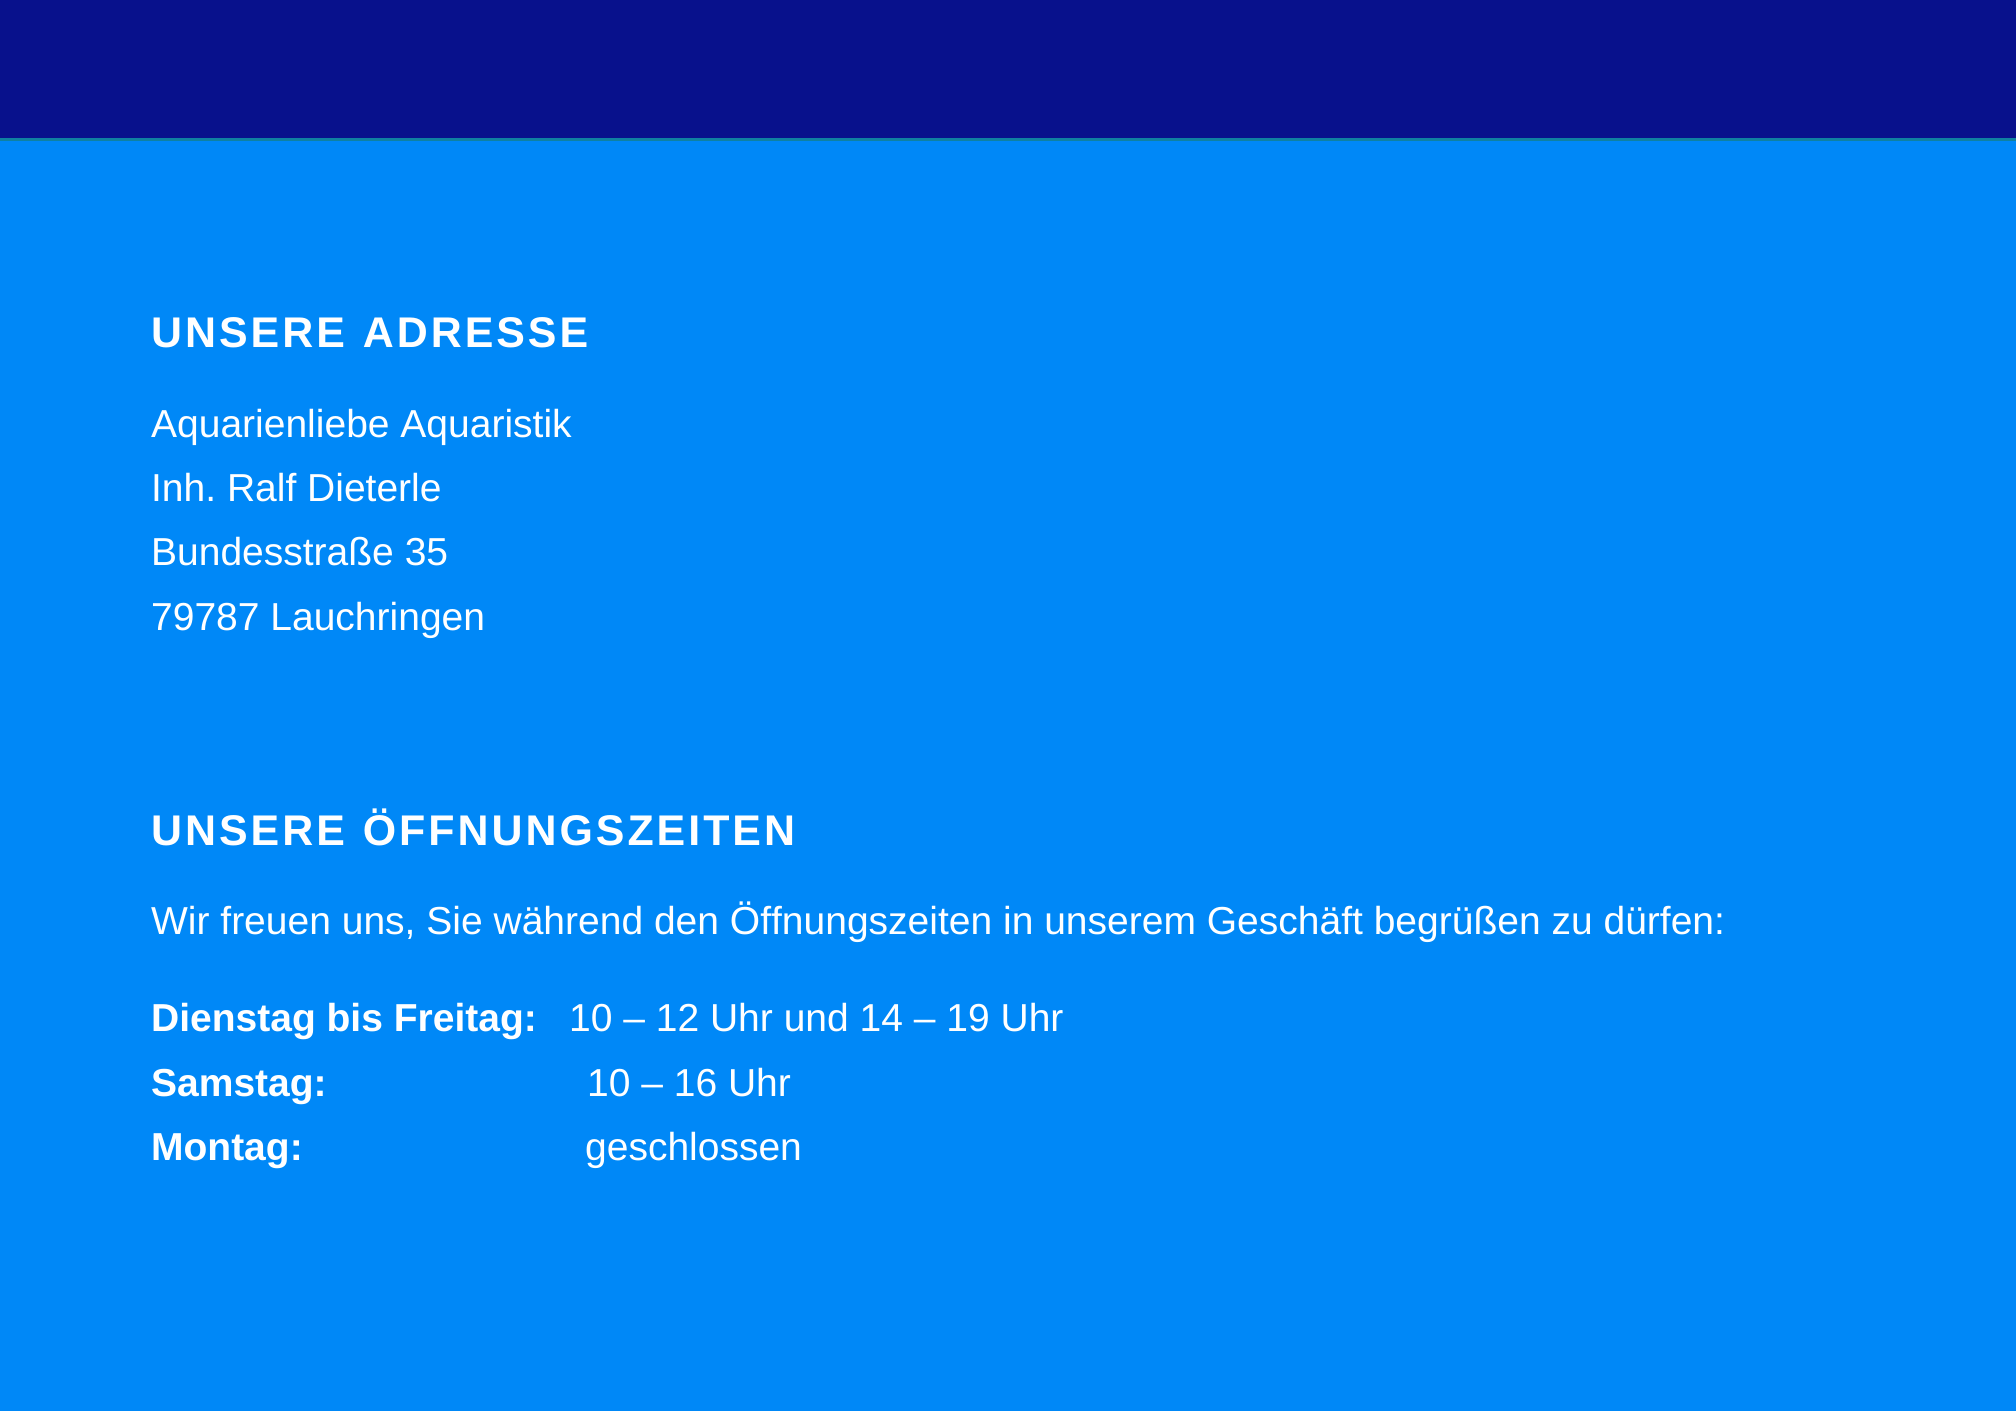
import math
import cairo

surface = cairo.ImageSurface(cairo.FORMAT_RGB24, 2016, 1411)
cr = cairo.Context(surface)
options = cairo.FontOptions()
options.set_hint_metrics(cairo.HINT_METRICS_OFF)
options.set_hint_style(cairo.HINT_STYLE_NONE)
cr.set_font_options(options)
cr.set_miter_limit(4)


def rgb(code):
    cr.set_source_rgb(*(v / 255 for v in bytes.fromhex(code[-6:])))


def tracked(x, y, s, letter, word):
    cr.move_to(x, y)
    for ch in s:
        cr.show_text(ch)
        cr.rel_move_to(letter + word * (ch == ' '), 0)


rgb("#08118c")
cr.paint()
rgb("#0088f7")
cr.rectangle(0, 141, 2016, 1270)
cr.fill()
rgb("#0f81a1")
cr.rectangle(0, 138, 2016, 3)
cr.fill()
cr.select_font_face("Liberation Sans", cairo.FONT_SLANT_NORMAL, cairo.FONT_WEIGHT_BOLD)
cr.set_font_size(42.9)
rgb("#ffffff")
tracked(151, 347, "UNSERE ADRESSE", 3, 0)
cr.select_font_face("Liberation Sans")
cr.set_font_size(39)
for x, y, s in [
    (151, 437, "Aquarienliebe Aquaristik"),
    (151, 501, "Inh. Ralf Dieterle"),
    (151, 565, "Bundesstraße 35"),
    (151, 630, "79787 Lauchringen"),
]:
    cr.move_to(x, y)
    cr.show_text(s)
cr.select_font_face("Liberation Sans", cairo.FONT_SLANT_NORMAL, cairo.FONT_WEIGHT_BOLD)
cr.set_font_size(42.9)
tracked(151, 845, "UNSERE ÖFFNUNGSZEITEN", 3, 0)
cr.select_font_face("Liberation Sans")
cr.set_font_size(39)
cr.move_to(151, 934)
cr.show_text("Wir freuen uns, Sie während den Öffnungszeiten in unserem Geschäft begrüßen zu dürfen:")
cr.select_font_face("Liberation Sans", cairo.FONT_SLANT_NORMAL, cairo.FONT_WEIGHT_BOLD)
cr.move_to(151, 1031)
cr.show_text("Dienstag bis Freitag:")
cr.select_font_face("Liberation Sans")
cr.move_to(569, 1031)
cr.show_text("10 – 12 Uhr und 14 – 19 Uhr")
cr.select_font_face("Liberation Sans", cairo.FONT_SLANT_NORMAL, cairo.FONT_WEIGHT_BOLD)
cr.move_to(151, 1096)
cr.show_text("Samstag:")
cr.select_font_face("Liberation Sans")
cr.move_to(587, 1096)
cr.show_text("10 – 16 Uhr")
cr.select_font_face("Liberation Sans", cairo.FONT_SLANT_NORMAL, cairo.FONT_WEIGHT_BOLD)
cr.move_to(151, 1160)
cr.show_text("Montag:")
cr.select_font_face("Liberation Sans")
cr.move_to(585, 1160)
cr.show_text("geschlossen")
surface.write_to_png("page.png")
